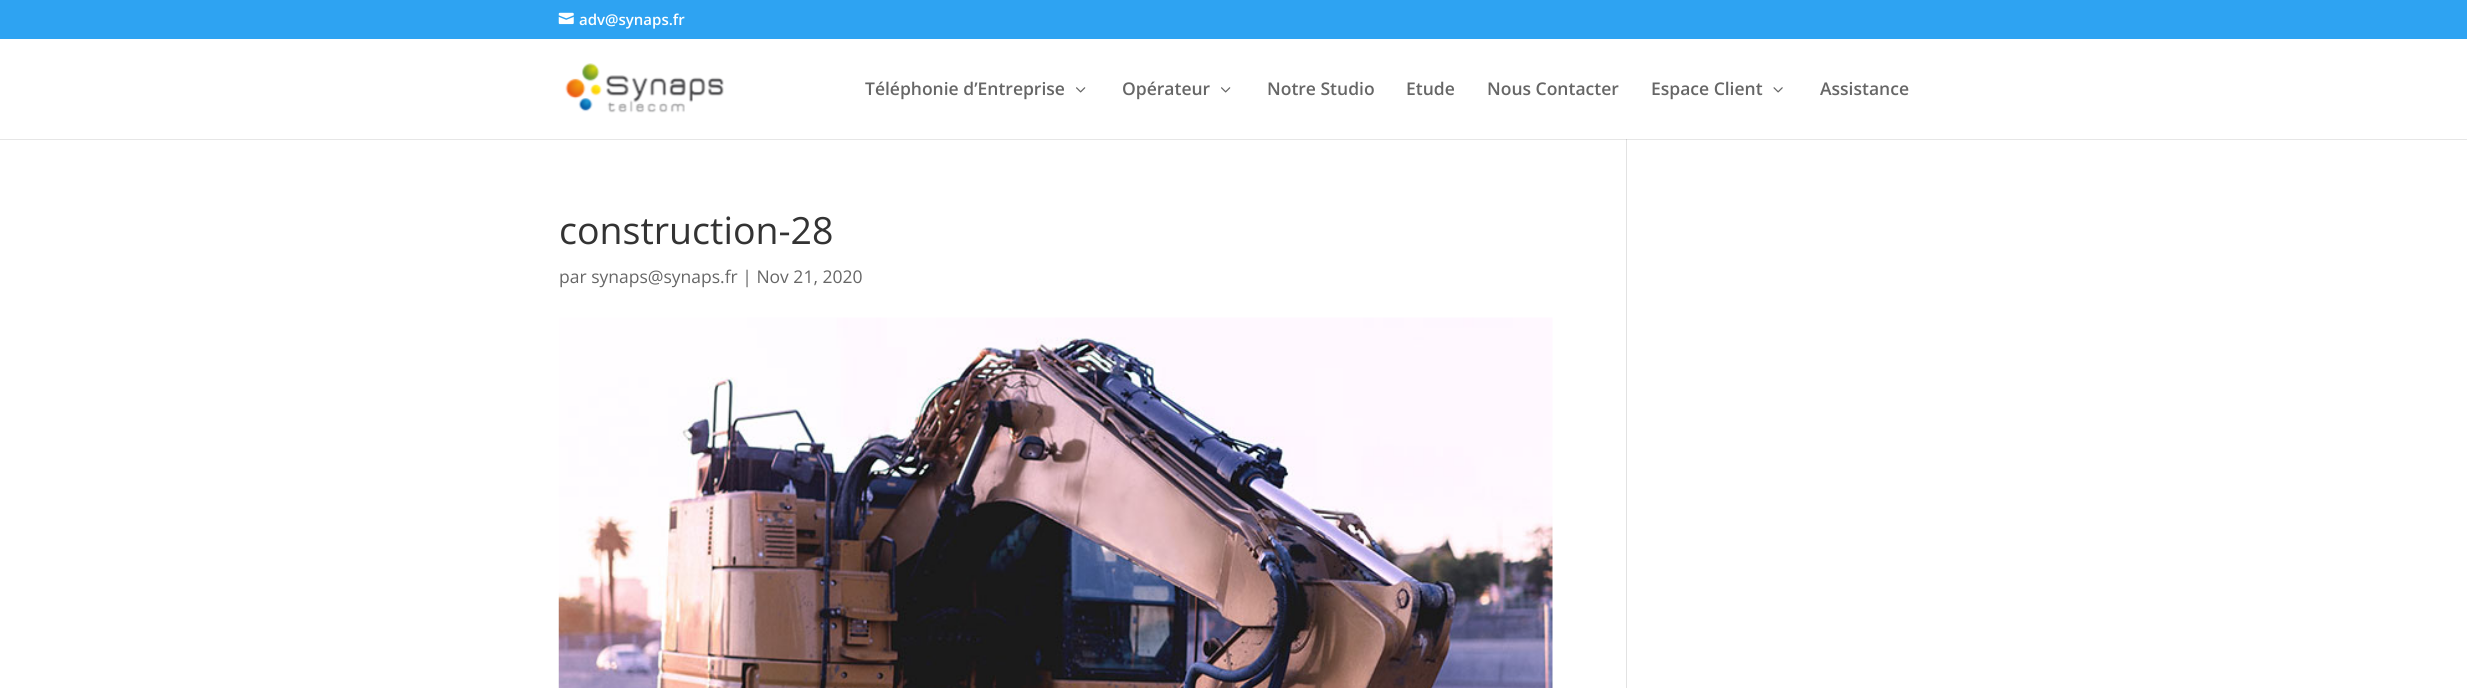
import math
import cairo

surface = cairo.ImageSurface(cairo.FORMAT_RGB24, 2467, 688)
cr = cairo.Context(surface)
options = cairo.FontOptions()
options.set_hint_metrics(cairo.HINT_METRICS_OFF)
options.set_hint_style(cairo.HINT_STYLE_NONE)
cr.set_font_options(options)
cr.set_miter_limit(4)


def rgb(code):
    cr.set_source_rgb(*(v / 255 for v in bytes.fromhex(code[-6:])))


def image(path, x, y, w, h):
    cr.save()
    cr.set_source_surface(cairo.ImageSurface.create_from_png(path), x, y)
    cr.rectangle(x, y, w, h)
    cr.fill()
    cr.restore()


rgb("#ffffff")
cr.paint()
rgb("#2ea3f2")
cr.rectangle(0, 0, 2467, 39)
cr.fill()
image("img/1.png", 558, 12, 16, 13)
rgb("#e2e2e2")
cr.rectangle(1626, 139, 1, 549)
cr.fill()
cr.set_source_rgba(0, 0, 0, 0.1)
cr.new_path()
cr.move_to(0, 139)
cr.line_to(0, 140)
cr.line_to(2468, 140)
cr.line_to(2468, 40)
cr.line_to(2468, 139)
cr.close_path()
cr.fill()
image("img/2.png", 565, 63, 159, 50)
image("img/3.png", 1076, 87, 10, 6)
image("img/3.png", 1221, 87, 10, 6)
image("img/4.png", 1773, 87, 10, 6)
image("img/5.png", 558, 317, 995, 371)
cr.select_font_face("Open Sans SemiBold")
cr.set_font_size(15)
rgb("#ffffff")
cr.move_to(579, 25)
cr.show_text("adv@synaps.fr")
cr.set_font_size(17.5)
rgb("#666666")
for x, y, s in [
    (865, 95, "Téléphonie d’Entreprise"),
    (1122, 95, "Opérateur"),
    (1267, 95, "Notre Studio"),
    (1406, 95, "Etude"),
    (1487, 95, "Nous Contacter"),
    (1651, 95, "Espace Client"),
    (1820, 95, "Assistance"),
]:
    cr.move_to(x, y)
    cr.show_text(s)
cr.select_font_face("Open Sans")
cr.set_font_size(37.5)
rgb("#333333")
cr.move_to(559, 244)
cr.show_text("construction-28")
cr.set_font_size(17.5)
rgb("#666666")
cr.move_to(559, 283)
cr.show_text("par synaps@synaps.fr | Nov 21, 2020")
surface.write_to_png("page.png")
